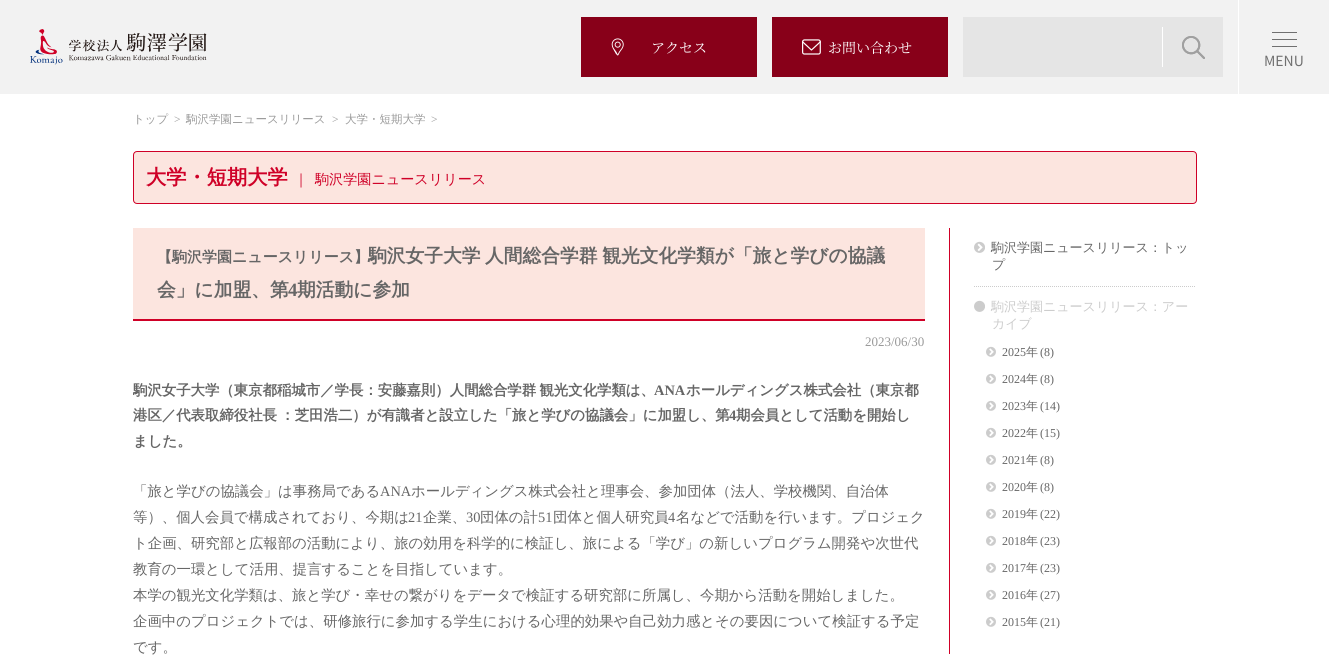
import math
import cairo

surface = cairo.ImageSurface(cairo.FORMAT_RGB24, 1329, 667)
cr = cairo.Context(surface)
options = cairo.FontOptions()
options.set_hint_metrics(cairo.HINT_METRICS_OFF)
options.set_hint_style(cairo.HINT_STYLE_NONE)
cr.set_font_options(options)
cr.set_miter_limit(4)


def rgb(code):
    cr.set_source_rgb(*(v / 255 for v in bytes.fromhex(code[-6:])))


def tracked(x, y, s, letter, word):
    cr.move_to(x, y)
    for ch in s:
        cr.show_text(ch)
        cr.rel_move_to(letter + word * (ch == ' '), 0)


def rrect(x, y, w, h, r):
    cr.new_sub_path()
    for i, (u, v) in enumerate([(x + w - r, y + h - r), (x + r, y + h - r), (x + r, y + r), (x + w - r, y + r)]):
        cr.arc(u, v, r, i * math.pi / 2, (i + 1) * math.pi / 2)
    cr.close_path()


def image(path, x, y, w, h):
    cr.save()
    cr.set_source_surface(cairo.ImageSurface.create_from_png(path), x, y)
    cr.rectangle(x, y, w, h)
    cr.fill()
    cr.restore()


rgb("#ffffff")
cr.paint()
rgb("#f2f2f2")
cr.rectangle(0, 0, 1329, 94)
cr.fill()
image("img/1.png", 30, 29, 177, 36)
rgb("#ffffff")
cr.rectangle(1238, 0, 1, 94)
cr.fill()
rgb("#880019")
cr.rectangle(581, 17, 176, 60)
cr.fill()
image("img/2.png", 611, 38, 13, 18)
cr.rectangle(772, 17, 176, 60)
cr.fill()
image("img/3.png", 802, 39, 19, 16)
rgb("#e5e5e5")
cr.rectangle(963, 17, 260, 60)
cr.fill()
rgb("#ffffff")
cr.rectangle(1162, 27, 1, 40)
cr.fill()
image("img/4.png", 1182, 36, 23, 23)
image("img/5.png", 1182, 36, 23, 23)
for x, y, w, h, color in [
    (1272, 32, 25, 1, "#707070"),
    (1272, 46, 25, 1, "#707070"),
    (1272, 39, 25, 1, "#707070"),
]:
    rgb(color)
    cr.rectangle(x, y, w, h)
    cr.fill()
rgb("#fce5df")
rrect(133.5, 151.5, 1063, 52, 3.5)
cr.fill_preserve()
rgb("#cf0027")
cr.set_line_width(1)
cr.stroke()
for x, y, w, h, color in [
    (133, 228, 792, 91, "#fce5df"),
    (133, 319, 792, 2, "#cf0027"),
    (949, 228, 1, 426, "#cf0027"),
]:
    rgb(color)
    cr.rectangle(x, y, w, h)
    cr.fill()
image("img/6.png", 974, 241, 11, 12)
cr.new_path()
cr.move_to(974, 286.5)
cr.line_to(1196, 286.5)
rgb("#cccccc")
cr.set_dash([1, 1])
cr.stroke()
image("img/7.png", 974, 300, 11, 12)
image("img/8.png", 986, 346, 10, 11)
image("img/8.png", 986, 373, 10, 11)
image("img/8.png", 986, 400, 10, 11)
image("img/8.png", 986, 427, 10, 11)
image("img/8.png", 986, 454, 10, 11)
image("img/8.png", 986, 481, 10, 11)
image("img/8.png", 986, 508, 10, 11)
image("img/8.png", 986, 535, 10, 11)
image("img/8.png", 986, 562, 10, 11)
image("img/8.png", 986, 589, 10, 11)
image("img/8.png", 986, 616, 10, 11)
cr.select_font_face("Noto Serif JP")
cr.set_font_size(14)
rgb("#ffffff")
cr.move_to(651, 53)
cr.show_text("アクセス")
cr.move_to(828, 53)
cr.show_text("お問い合わせ")
cr.select_font_face("Noto Sans JP")
rgb("#707070")
cr.move_to(1264, 66)
cr.show_text("MENU")
cr.select_font_face("WenQuanYi Zen Hei Medium")
cr.set_font_size(11.5)
rgb("#999999")
cr.move_to(133, 123)
cr.show_text("トップ")
cr.select_font_face("Liberation Serif")
cr.move_to(174, 123)
cr.show_text(">")
cr.select_font_face("WenQuanYi Zen Hei Medium")
cr.move_to(186, 123)
cr.show_text("駒沢学園ニュースリリース")
cr.select_font_face("Liberation Serif")
cr.move_to(332, 123)
cr.show_text(">")
cr.select_font_face("WenQuanYi Zen Hei Medium")
cr.move_to(345, 123)
cr.show_text("大学・短期大学")
cr.select_font_face("Liberation Serif")
cr.move_to(431, 123)
cr.show_text(">")
cr.select_font_face("WenQuanYi Zen Hei", cairo.FONT_SLANT_NORMAL, cairo.FONT_WEIGHT_BOLD)
cr.set_font_size(20.25)
rgb("#cf0027")
cr.move_to(146, 184)
cr.show_text("大学・短期大学")
cr.select_font_face("WenQuanYi Zen Hei Medium")
cr.set_font_size(14.1)
cr.move_to(294, 184)
cr.show_text("｜")
cr.move_to(315, 184)
cr.show_text("駒沢学園ニュースリリース")
cr.select_font_face("WenQuanYi Zen Hei", cairo.FONT_SLANT_NORMAL, cairo.FONT_WEIGHT_BOLD)
cr.set_font_size(15)
rgb("#666666")
cr.move_to(157, 262)
cr.show_text("【駒沢学園ニュースリリース】")
cr.set_font_size(18.75)
tracked(368, 262, "駒沢女子大学 人間総合学群 観光文化学類が「旅と学びの協議", 0, -1)
cr.move_to(157, 296)
cr.show_text("会」に加盟、第")
cr.select_font_face("Liberation Serif", cairo.FONT_SLANT_NORMAL, cairo.FONT_WEIGHT_BOLD)
cr.move_to(288, 296)
cr.show_text("4")
cr.select_font_face("WenQuanYi Zen Hei", cairo.FONT_SLANT_NORMAL, cairo.FONT_WEIGHT_BOLD)
cr.move_to(297, 296)
cr.show_text("期活動に参加")
cr.select_font_face("Liberation Serif")
cr.set_font_size(13)
rgb("#999999")
cr.move_to(865, 346)
cr.show_text("2023/06/30")
cr.save()
cr.rectangle(133, 100, 1064, 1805)
cr.clip()
cr.select_font_face("WenQuanYi Zen Hei", cairo.FONT_SLANT_NORMAL, cairo.FONT_WEIGHT_BOLD)
cr.set_font_size(14.4)
rgb("#666666")
tracked(133, 395, "駒沢女子大学（東京都稲城市／学長：安藤嘉則）人間総合学群 観光文化学類は、", 0, -1)
cr.restore()
cr.select_font_face("Liberation Serif", cairo.FONT_SLANT_NORMAL, cairo.FONT_WEIGHT_BOLD)
cr.set_font_size(14.4)
rgb("#666666")
cr.move_to(654, 395)
cr.show_text("ANA")
cr.select_font_face("WenQuanYi Zen Hei", cairo.FONT_SLANT_NORMAL, cairo.FONT_WEIGHT_BOLD)
cr.move_to(686, 395)
cr.show_text("ホールディングス株式会社（東京都")
tracked(133, 420, "港区／代表取締役社長 ：芝田浩二）が有識者と設立した「旅と学びの協議会」に加盟し、第", 0, -1)
cr.select_font_face("Liberation Serif", cairo.FONT_SLANT_NORMAL, cairo.FONT_WEIGHT_BOLD)
cr.move_to(729, 420)
cr.show_text("4")
cr.select_font_face("WenQuanYi Zen Hei", cairo.FONT_SLANT_NORMAL, cairo.FONT_WEIGHT_BOLD)
cr.move_to(736, 420)
cr.show_text("期会員として活動を開始し")
cr.move_to(133, 446)
cr.show_text("ました。")
cr.select_font_face("WenQuanYi Zen Hei Medium")
cr.move_to(133, 496)
cr.show_text("「旅と学びの協議会」は事務局である")
cr.select_font_face("Liberation Serif")
cr.move_to(380, 496)
cr.show_text("ANA")
cr.select_font_face("WenQuanYi Zen Hei Medium")
cr.move_to(411, 496)
cr.show_text("ホールディングス株式会社と理事会、参加団体（法人、学校機関、自治体")
cr.move_to(133, 522)
cr.show_text("等）、個人会員で構成されており、今期は")
cr.select_font_face("Liberation Serif")
cr.move_to(408, 522)
cr.show_text("21")
cr.select_font_face("WenQuanYi Zen Hei Medium")
cr.move_to(423, 522)
cr.show_text("企業、")
cr.select_font_face("Liberation Serif")
cr.move_to(466, 522)
cr.show_text("30")
cr.select_font_face("WenQuanYi Zen Hei Medium")
cr.move_to(480, 522)
cr.show_text("団体の計")
cr.select_font_face("Liberation Serif")
cr.move_to(538, 522)
cr.show_text("51")
cr.select_font_face("WenQuanYi Zen Hei Medium")
cr.move_to(553, 522)
cr.show_text("団体と個人研究員")
cr.select_font_face("Liberation Serif")
cr.move_to(668, 522)
cr.show_text("4")
cr.select_font_face("WenQuanYi Zen Hei Medium")
for x, y, s in [
    (676, 522, "名などで活動を行います。プロジェク"),
    (133, 548, "ト企画、研究部と広報部の活動により、旅の効用を科学的に検証し、旅による「学び」の新しいプログラム開発や次世代"),
    (133, 574, "教育の一環として活用、提言することを目指しています。"),
    (133, 600, "本学の観光文化学類は、旅と学び・幸せの繋がりをデータで検証する研究部に所属し、今期から活動を開始しました。"),
    (133, 626, "企画中のプロジェクトでは、研修旅行に参加する学生における心理的効果や自己効力感とその要因について検証する予定"),
    (133, 652, "です。"),
]:
    cr.move_to(x, y)
    cr.show_text(s)
cr.set_font_size(13)
cr.move_to(991, 252)
cr.show_text("駒沢学園ニュースリリース：トッ")
cr.move_to(992, 269)
cr.show_text("プ")
rgb("#cccccc")
cr.move_to(991, 311)
cr.show_text("駒沢学園ニュースリリース：アー")
cr.move_to(992, 328)
cr.show_text("カイブ")
cr.select_font_face("Liberation Serif")
cr.set_font_size(12)
rgb("#666666")
cr.move_to(1002, 356)
cr.show_text("2025")
cr.select_font_face("WenQuanYi Zen Hei Medium")
cr.move_to(1026, 356)
cr.show_text("年")
cr.select_font_face("Liberation Serif")
cr.move_to(1040, 356)
cr.show_text("(8)")
cr.move_to(1002, 383)
cr.show_text("2024")
cr.select_font_face("WenQuanYi Zen Hei Medium")
cr.move_to(1026, 383)
cr.show_text("年")
cr.select_font_face("Liberation Serif")
cr.move_to(1040, 383)
cr.show_text("(8)")
cr.move_to(1002, 410)
cr.show_text("2023")
cr.select_font_face("WenQuanYi Zen Hei Medium")
cr.move_to(1026, 410)
cr.show_text("年")
cr.select_font_face("Liberation Serif")
cr.move_to(1040, 410)
cr.show_text("(14)")
cr.move_to(1002, 437)
cr.show_text("2022")
cr.select_font_face("WenQuanYi Zen Hei Medium")
cr.move_to(1026, 437)
cr.show_text("年")
cr.select_font_face("Liberation Serif")
cr.move_to(1040, 437)
cr.show_text("(15)")
cr.move_to(1002, 464)
cr.show_text("2021")
cr.select_font_face("WenQuanYi Zen Hei Medium")
cr.move_to(1026, 464)
cr.show_text("年")
cr.select_font_face("Liberation Serif")
cr.move_to(1040, 464)
cr.show_text("(8)")
cr.move_to(1002, 491)
cr.show_text("2020")
cr.select_font_face("WenQuanYi Zen Hei Medium")
cr.move_to(1026, 491)
cr.show_text("年")
cr.select_font_face("Liberation Serif")
cr.move_to(1040, 491)
cr.show_text("(8)")
cr.move_to(1002, 518)
cr.show_text("2019")
cr.select_font_face("WenQuanYi Zen Hei Medium")
cr.move_to(1026, 518)
cr.show_text("年")
cr.select_font_face("Liberation Serif")
cr.move_to(1040, 518)
cr.show_text("(22)")
cr.move_to(1002, 545)
cr.show_text("2018")
cr.select_font_face("WenQuanYi Zen Hei Medium")
cr.move_to(1026, 545)
cr.show_text("年")
cr.select_font_face("Liberation Serif")
cr.move_to(1040, 545)
cr.show_text("(23)")
cr.move_to(1002, 572)
cr.show_text("2017")
cr.select_font_face("WenQuanYi Zen Hei Medium")
cr.move_to(1026, 572)
cr.show_text("年")
cr.select_font_face("Liberation Serif")
cr.move_to(1040, 572)
cr.show_text("(23)")
cr.move_to(1002, 599)
cr.show_text("2016")
cr.select_font_face("WenQuanYi Zen Hei Medium")
cr.move_to(1026, 599)
cr.show_text("年")
cr.select_font_face("Liberation Serif")
cr.move_to(1040, 599)
cr.show_text("(27)")
cr.move_to(1002, 626)
cr.show_text("2015")
cr.select_font_face("WenQuanYi Zen Hei Medium")
cr.move_to(1026, 626)
cr.show_text("年")
cr.select_font_face("Liberation Serif")
cr.move_to(1040, 626)
cr.show_text("(21)")
surface.write_to_png("page.png")
